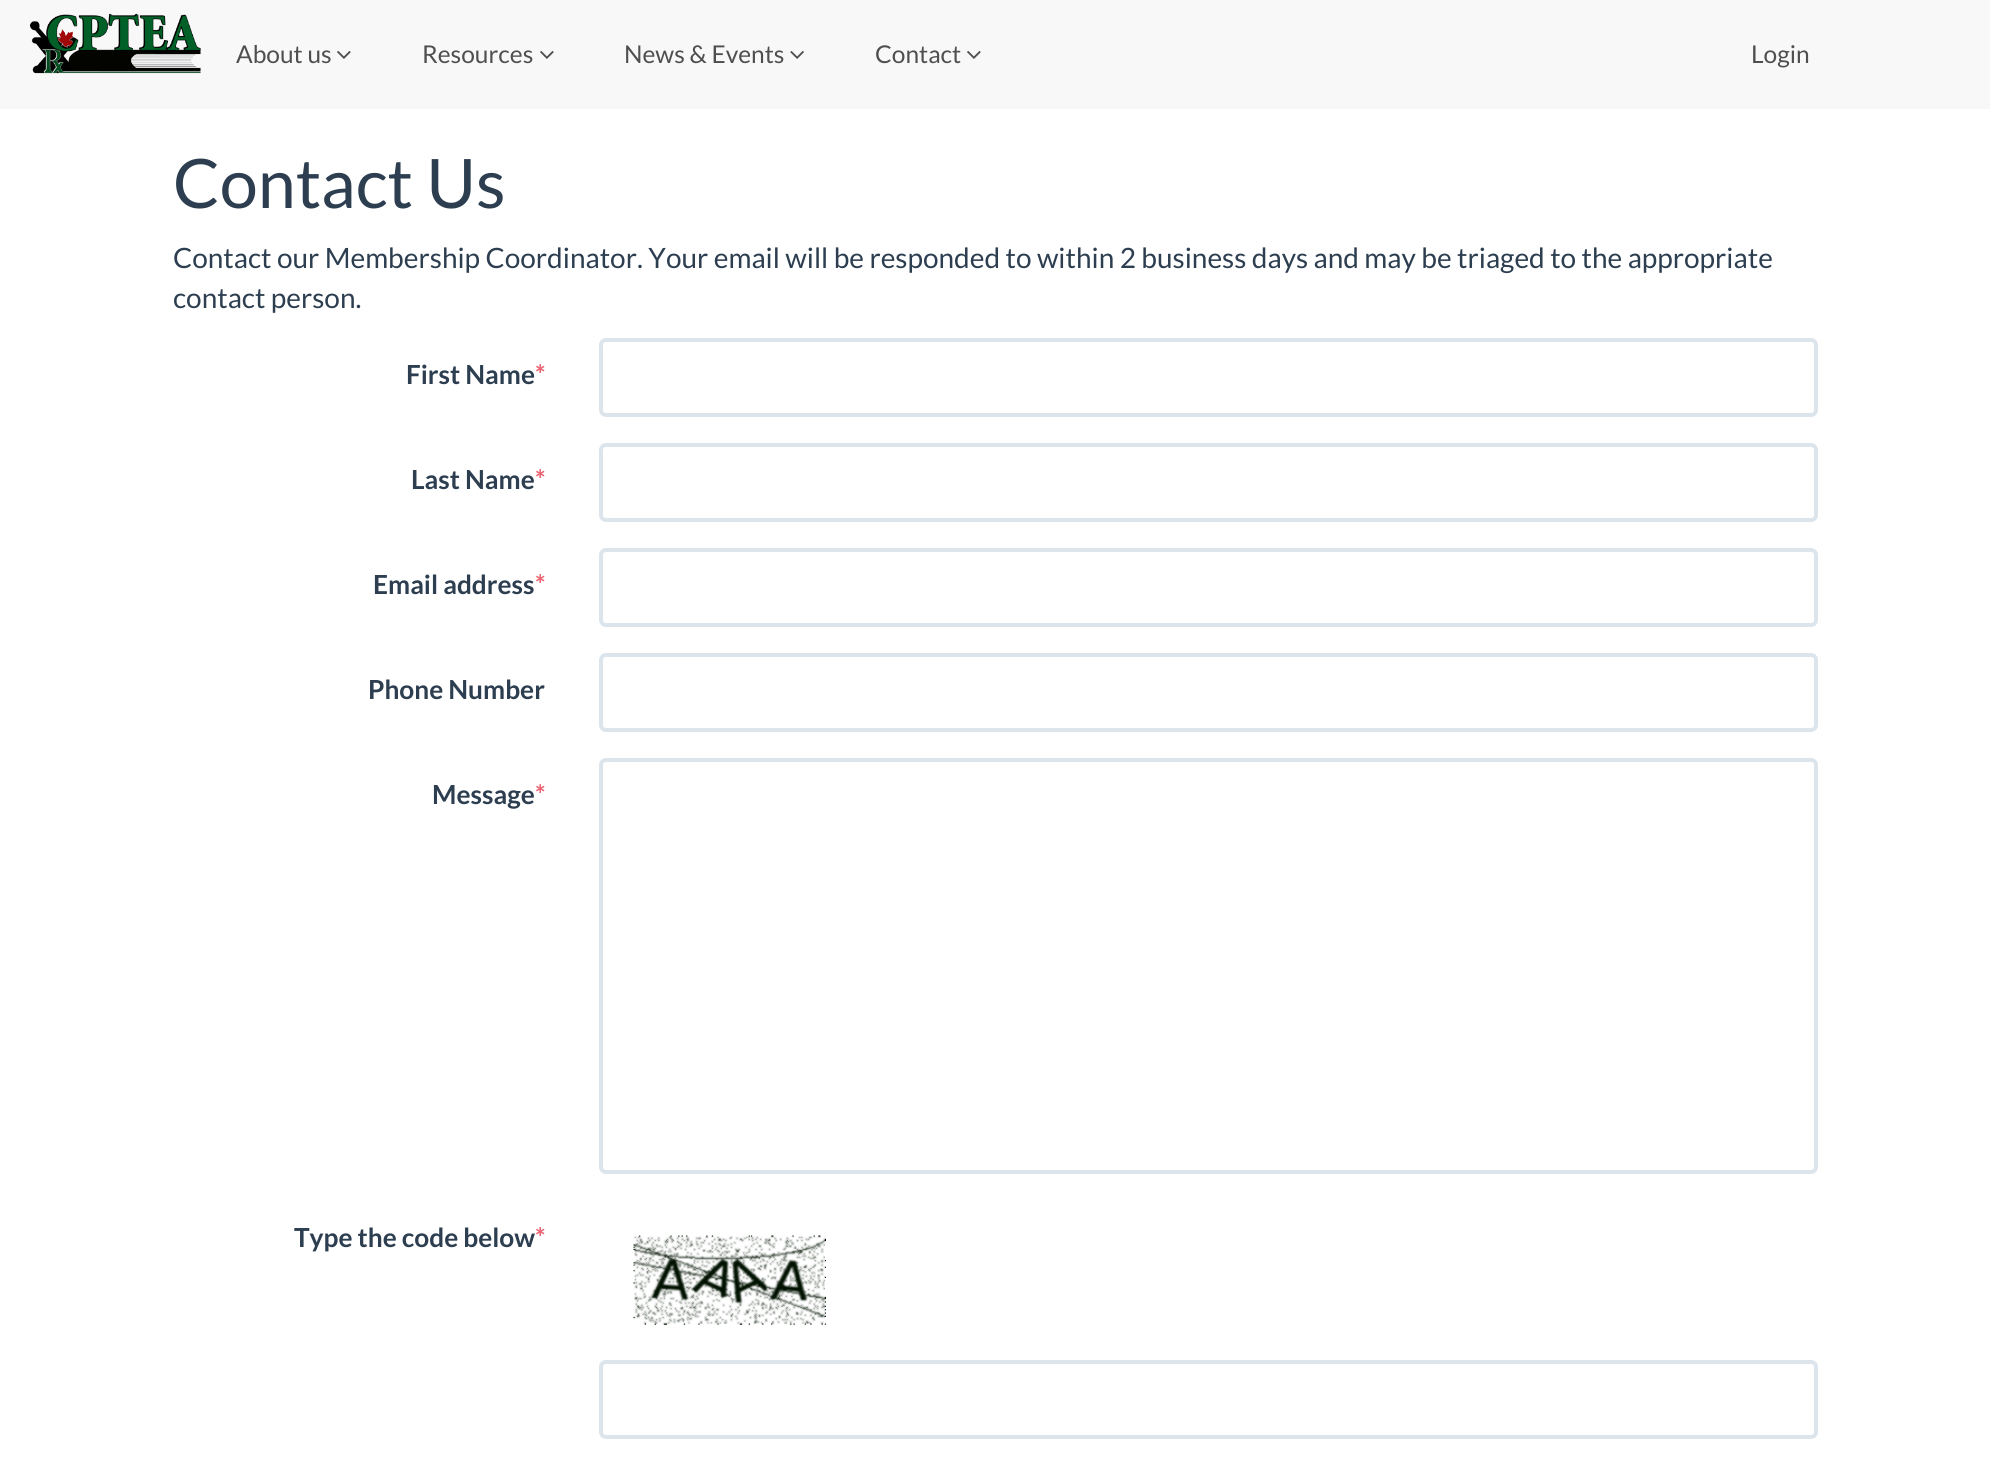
import math
import cairo

surface = cairo.ImageSurface(cairo.FORMAT_RGB24, 1990, 1482)
cr = cairo.Context(surface)
options = cairo.FontOptions()
options.set_hint_metrics(cairo.HINT_METRICS_OFF)
options.set_hint_style(cairo.HINT_STYLE_NONE)
cr.set_font_options(options)
cr.set_miter_limit(4)


def rgb(code):
    cr.set_source_rgb(*(v / 255 for v in bytes.fromhex(code[-6:])))


def rrect(x, y, w, h, r):
    cr.new_sub_path()
    for i, (u, v) in enumerate([(x + w - r, y + h - r), (x + r, y + h - r), (x + r, y + r), (x + w - r, y + r)]):
        cr.arc(u, v, r, i * math.pi / 2, (i + 1) * math.pi / 2)
    cr.close_path()


def image(path, x, y, w, h):
    cr.save()
    cr.set_source_surface(cairo.ImageSurface.create_from_png(path), x, y)
    cr.rectangle(x, y, w, h)
    cr.fill()
    cr.restore()


rgb("#ffffff")
cr.paint()
rgb("#f8f8f8")
cr.rectangle(0, 0, 1990, 109)
cr.fill()
image("img/1.png", 29, 13, 172, 61)
image("img/2.png", 337, 51, 14, 8)
image("img/2.png", 540, 51, 14, 8)
image("img/3.png", 790, 51, 14, 8)
image("img/2.png", 967, 51, 14, 8)
rrect(601, 340, 1215, 75, 5)
rgb("#dce4ec")
cr.set_line_width(4)
cr.stroke()
rrect(601, 445, 1215, 75, 5)
cr.stroke()
rrect(601, 550, 1215, 75, 5)
cr.stroke()
rrect(601, 655, 1215, 75, 5)
cr.stroke()
rrect(601, 760, 1215, 412, 5)
cr.stroke()
image("img/4.png", 633, 1235, 193, 90)
rrect(601, 1362, 1215, 75, 5)
cr.stroke()
cr.select_font_face("Lato")
cr.set_font_size(24.5)
rgb("#4f4f4f")
for x, y, s in [
    (236, 63, "About us"),
    (422, 63, "Resources"),
    (624, 63, "News & Events"),
    (875, 63, "Contact"),
    (1751, 63, "Login"),
]:
    cr.move_to(x, y)
    cr.show_text(s)
cr.set_font_size(68.25)
rgb("#2c3e50")
cr.move_to(173, 208)
cr.show_text("Contact Us")
cr.set_font_size(28)
cr.move_to(173, 268)
cr.show_text("Contact our Membership Coordinator. Your email will be responded to within 2 business days and may be triaged to the appropriate")
cr.move_to(173, 308)
cr.show_text("contact person.")
cr.select_font_face("Lato", cairo.FONT_SLANT_NORMAL, cairo.FONT_WEIGHT_BOLD)
cr.set_font_size(26.25)
cr.move_to(406, 384)
cr.show_text("First Name")
rgb("#ed6270")
cr.move_to(535, 384)
cr.show_text("*")
rgb("#2c3e50")
cr.move_to(411, 489)
cr.show_text("Last Name")
rgb("#ed6270")
cr.move_to(535, 489)
cr.show_text("*")
rgb("#2c3e50")
cr.move_to(373, 594)
cr.show_text("Email address")
rgb("#ed6270")
cr.move_to(535, 594)
cr.show_text("*")
rgb("#2c3e50")
cr.move_to(368, 699)
cr.show_text("Phone Number")
cr.move_to(432, 804)
cr.show_text("Message")
rgb("#ed6270")
cr.move_to(535, 804)
cr.show_text("*")
rgb("#2c3e50")
cr.move_to(294, 1247)
cr.show_text("Type the code below")
rgb("#ed6270")
cr.move_to(535, 1247)
cr.show_text("*")
surface.write_to_png("page.png")
